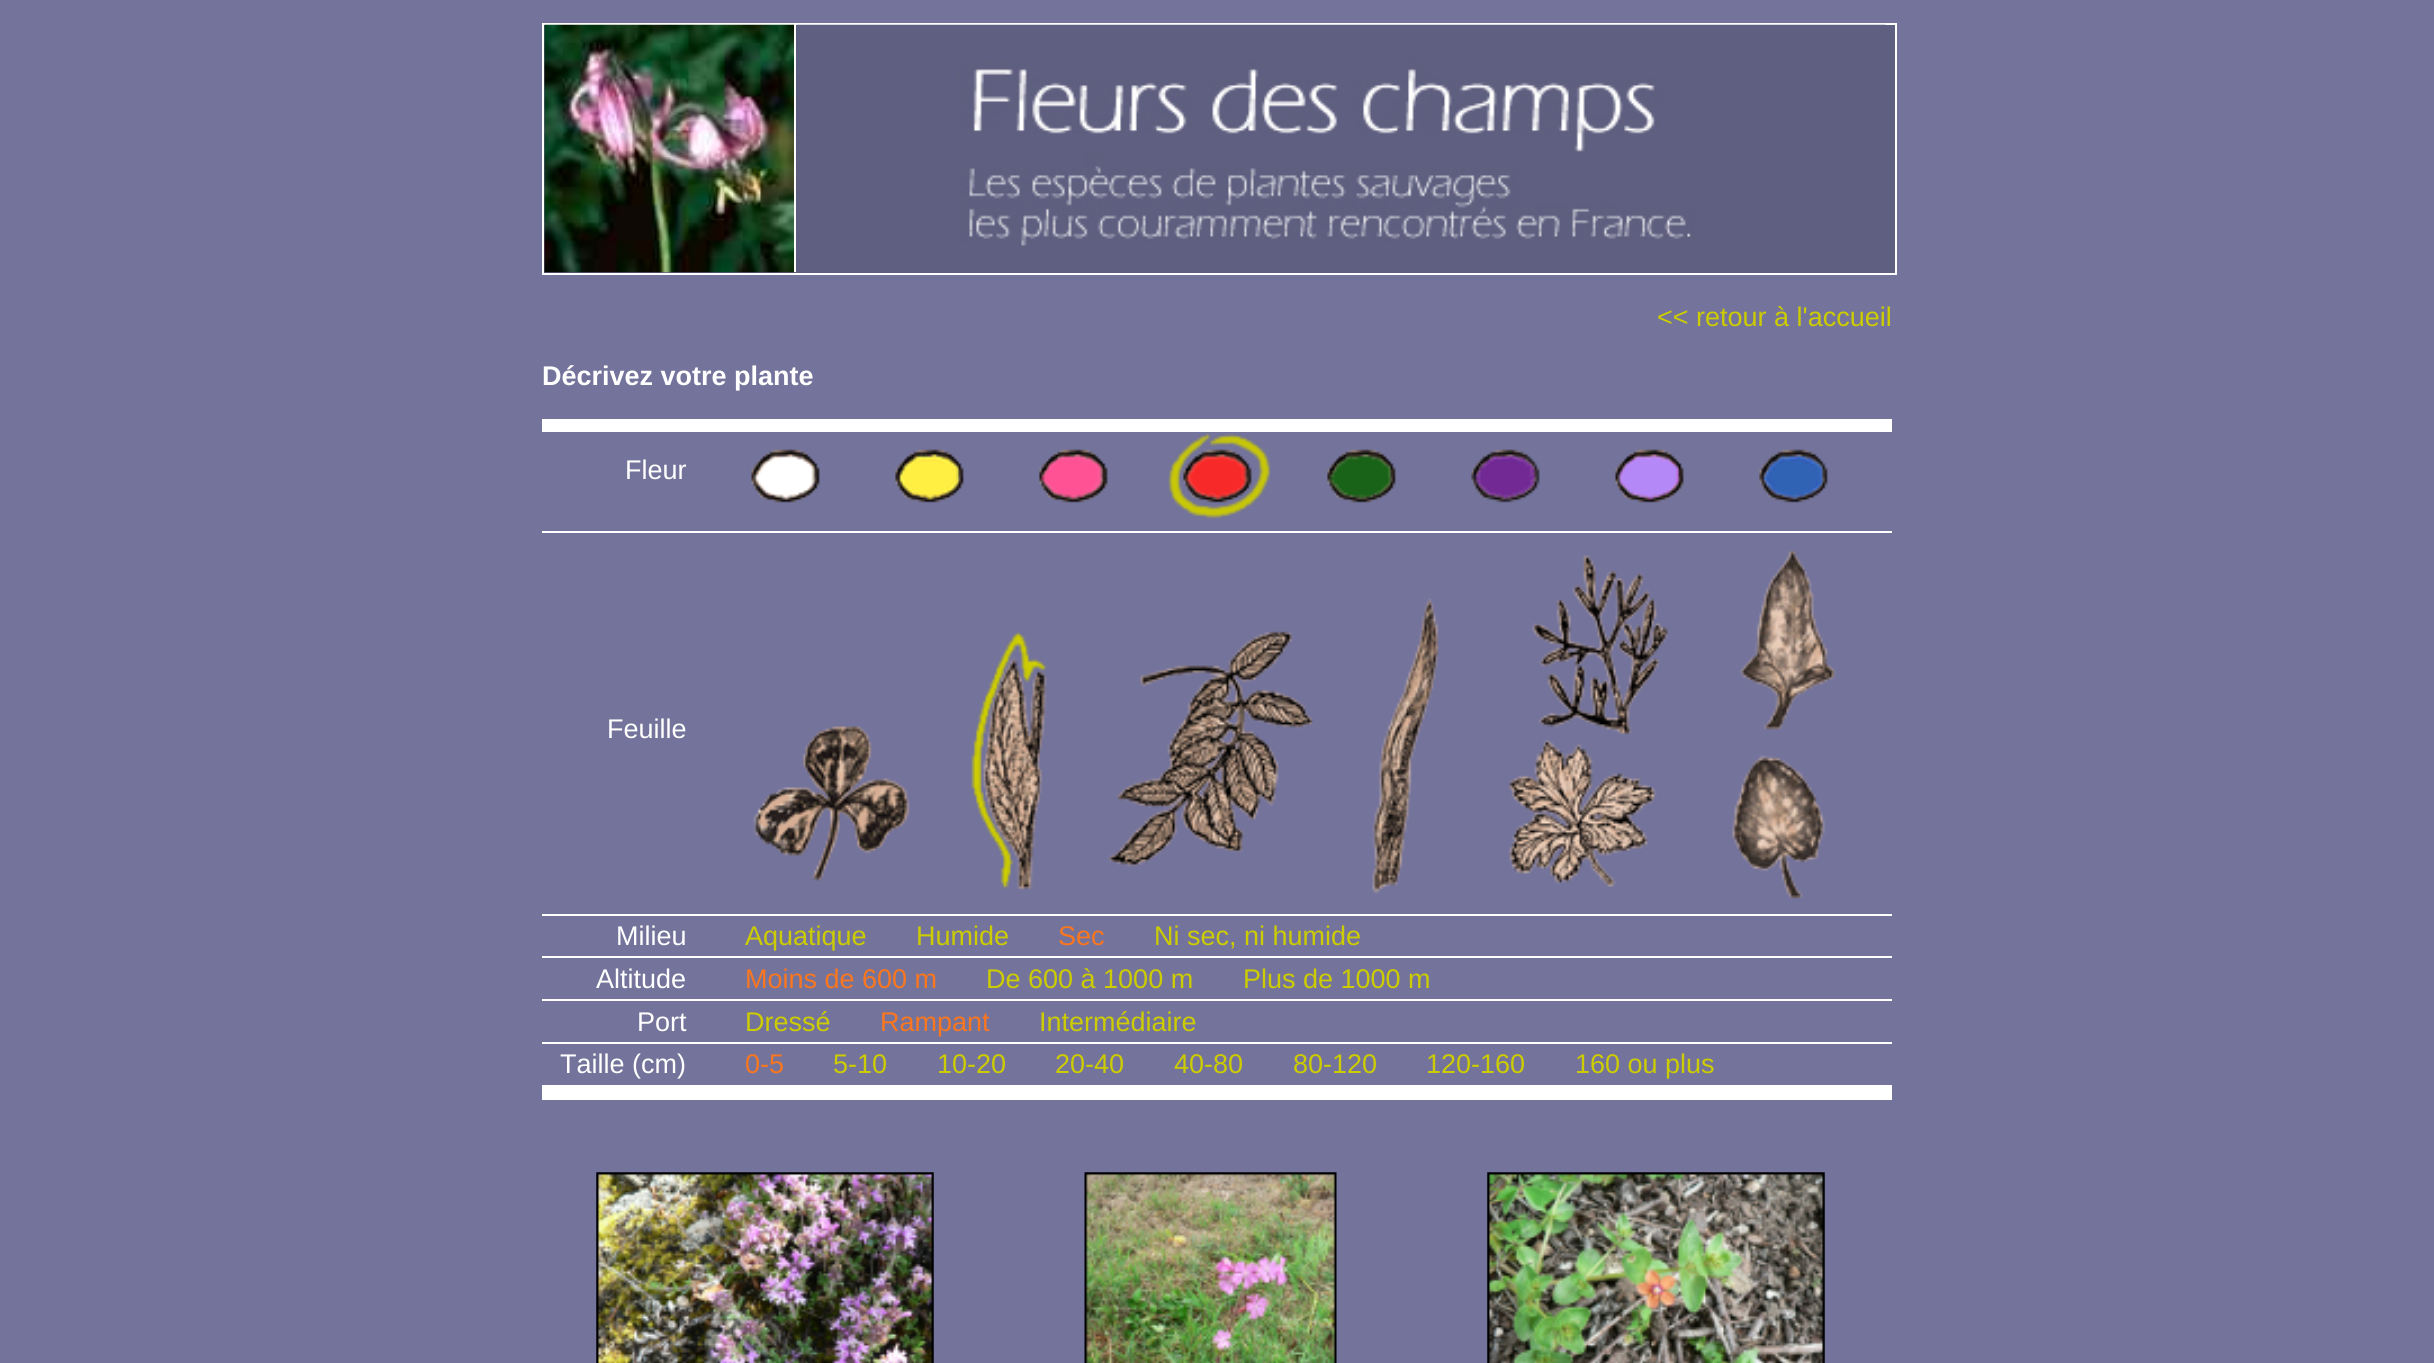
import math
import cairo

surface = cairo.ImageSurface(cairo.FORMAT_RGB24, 2434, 1363)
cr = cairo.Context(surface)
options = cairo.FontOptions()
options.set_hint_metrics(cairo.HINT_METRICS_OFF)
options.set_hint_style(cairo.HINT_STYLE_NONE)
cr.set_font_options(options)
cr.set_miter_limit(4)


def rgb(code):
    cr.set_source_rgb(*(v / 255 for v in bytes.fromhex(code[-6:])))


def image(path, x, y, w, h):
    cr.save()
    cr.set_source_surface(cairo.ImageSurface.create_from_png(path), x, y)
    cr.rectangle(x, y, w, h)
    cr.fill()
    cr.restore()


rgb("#73739b")
cr.paint()
rgb("#5f5f81")
cr.rectangle(543, 24, 1353, 250)
cr.fill_preserve()
rgb("#ffffff")
cr.stroke()
image("img/1.png", 544, 24, 251, 249)
cr.rectangle(794, 25, 2, 247)
cr.fill()
image("img/2.png", 796, 24, 1090, 224)
for x, y, w, h, color in [
    (542, 419, 1350, 13, "#ffffff"),
    (542, 1085, 1350, 15, "#ffffff"),
    (542, 531, 1350, 2, "#ffffff"),
]:
    rgb(color)
    cr.rectangle(x, y, w, h)
    cr.fill()
image("img/3.png", 751, 449, 69, 54)
image("img/4.png", 895, 449, 69, 54)
image("img/5.png", 1039, 449, 69, 54)
image("img/6.png", 1167, 433, 104, 86)
image("img/7.png", 1327, 449, 69, 54)
image("img/8.png", 1471, 449, 69, 54)
image("img/9.png", 1615, 449, 69, 54)
image("img/10.png", 1759, 449, 69, 54)
cr.rectangle(542, 914, 1350, 2)
cr.fill()
image("img/11.png", 753, 726, 157, 155)
image("img/12.png", 971, 631, 76, 259)
image("img/13.png", 1107, 631, 206, 236)
image("img/14.png", 1372, 598, 67, 296)
image("img/15.png", 1509, 555, 159, 332)
image("img/16.png", 1732, 550, 104, 349)
for x, y, w, h, color in [
    (542, 956, 1350, 2, "#ffffff"),
    (542, 999, 1350, 2, "#ffffff"),
    (542, 1042, 1350, 2, "#ffffff"),
]:
    rgb(color)
    cr.rectangle(x, y, w, h)
    cr.fill()
image("img/17.png", 596, 1172, 338, 191)
image("img/18.png", 1084, 1172, 253, 191)
image("img/19.png", 1487, 1172, 338, 191)
cr.select_font_face("Liberation Sans")
cr.set_font_size(27)
rgb("#cccc00")
cr.move_to(1657, 326)
cr.show_text("<< retour à l'accueil")
cr.select_font_face("Liberation Sans", cairo.FONT_SLANT_NORMAL, cairo.FONT_WEIGHT_BOLD)
rgb("#ffffff")
cr.move_to(542, 385)
cr.show_text("Décrivez votre plante")
cr.select_font_face("Liberation Sans")
for x, y, s in [
    (625, 479, "Fleur"),
    (607, 738, "Feuille"),
    (616, 945, "Milieu"),
]:
    cr.move_to(x, y)
    cr.show_text(s)
rgb("#cccc00")
cr.move_to(745, 945)
cr.show_text("Aquatique")
cr.move_to(916, 945)
cr.show_text("Humide")
rgb("#fa761f")
cr.move_to(1058, 945)
cr.show_text("Sec")
rgb("#cccc00")
cr.move_to(1154, 945)
cr.show_text("Ni sec, ni humide")
rgb("#ffffff")
cr.move_to(596, 988)
cr.show_text("Altitude")
rgb("#fa761f")
cr.move_to(745, 988)
cr.show_text("Moins de 600 m")
rgb("#cccc00")
cr.move_to(986, 988)
cr.show_text("De 600 à 1000 m")
cr.move_to(1243, 988)
cr.show_text("Plus de 1000 m")
rgb("#ffffff")
cr.move_to(637, 1031)
cr.show_text("Port")
rgb("#cccc00")
cr.move_to(745, 1031)
cr.show_text("Dressé")
rgb("#fa761f")
cr.move_to(880, 1031)
cr.show_text("Rampant")
rgb("#cccc00")
cr.move_to(1039, 1031)
cr.show_text("Intermédiaire")
rgb("#ffffff")
cr.move_to(560, 1073)
cr.show_text("Taille (cm)")
rgb("#fa761f")
cr.move_to(745, 1073)
cr.show_text("0-5")
rgb("#cccc00")
for x, y, s in [
    (833, 1073, "5-10"),
    (937, 1073, "10-20"),
    (1055, 1073, "20-40"),
    (1174, 1073, "40-80"),
    (1293, 1073, "80-120"),
    (1426, 1073, "120-160"),
    (1575, 1073, "160 ou plus"),
]:
    cr.move_to(x, y)
    cr.show_text(s)
surface.write_to_png("page.png")
